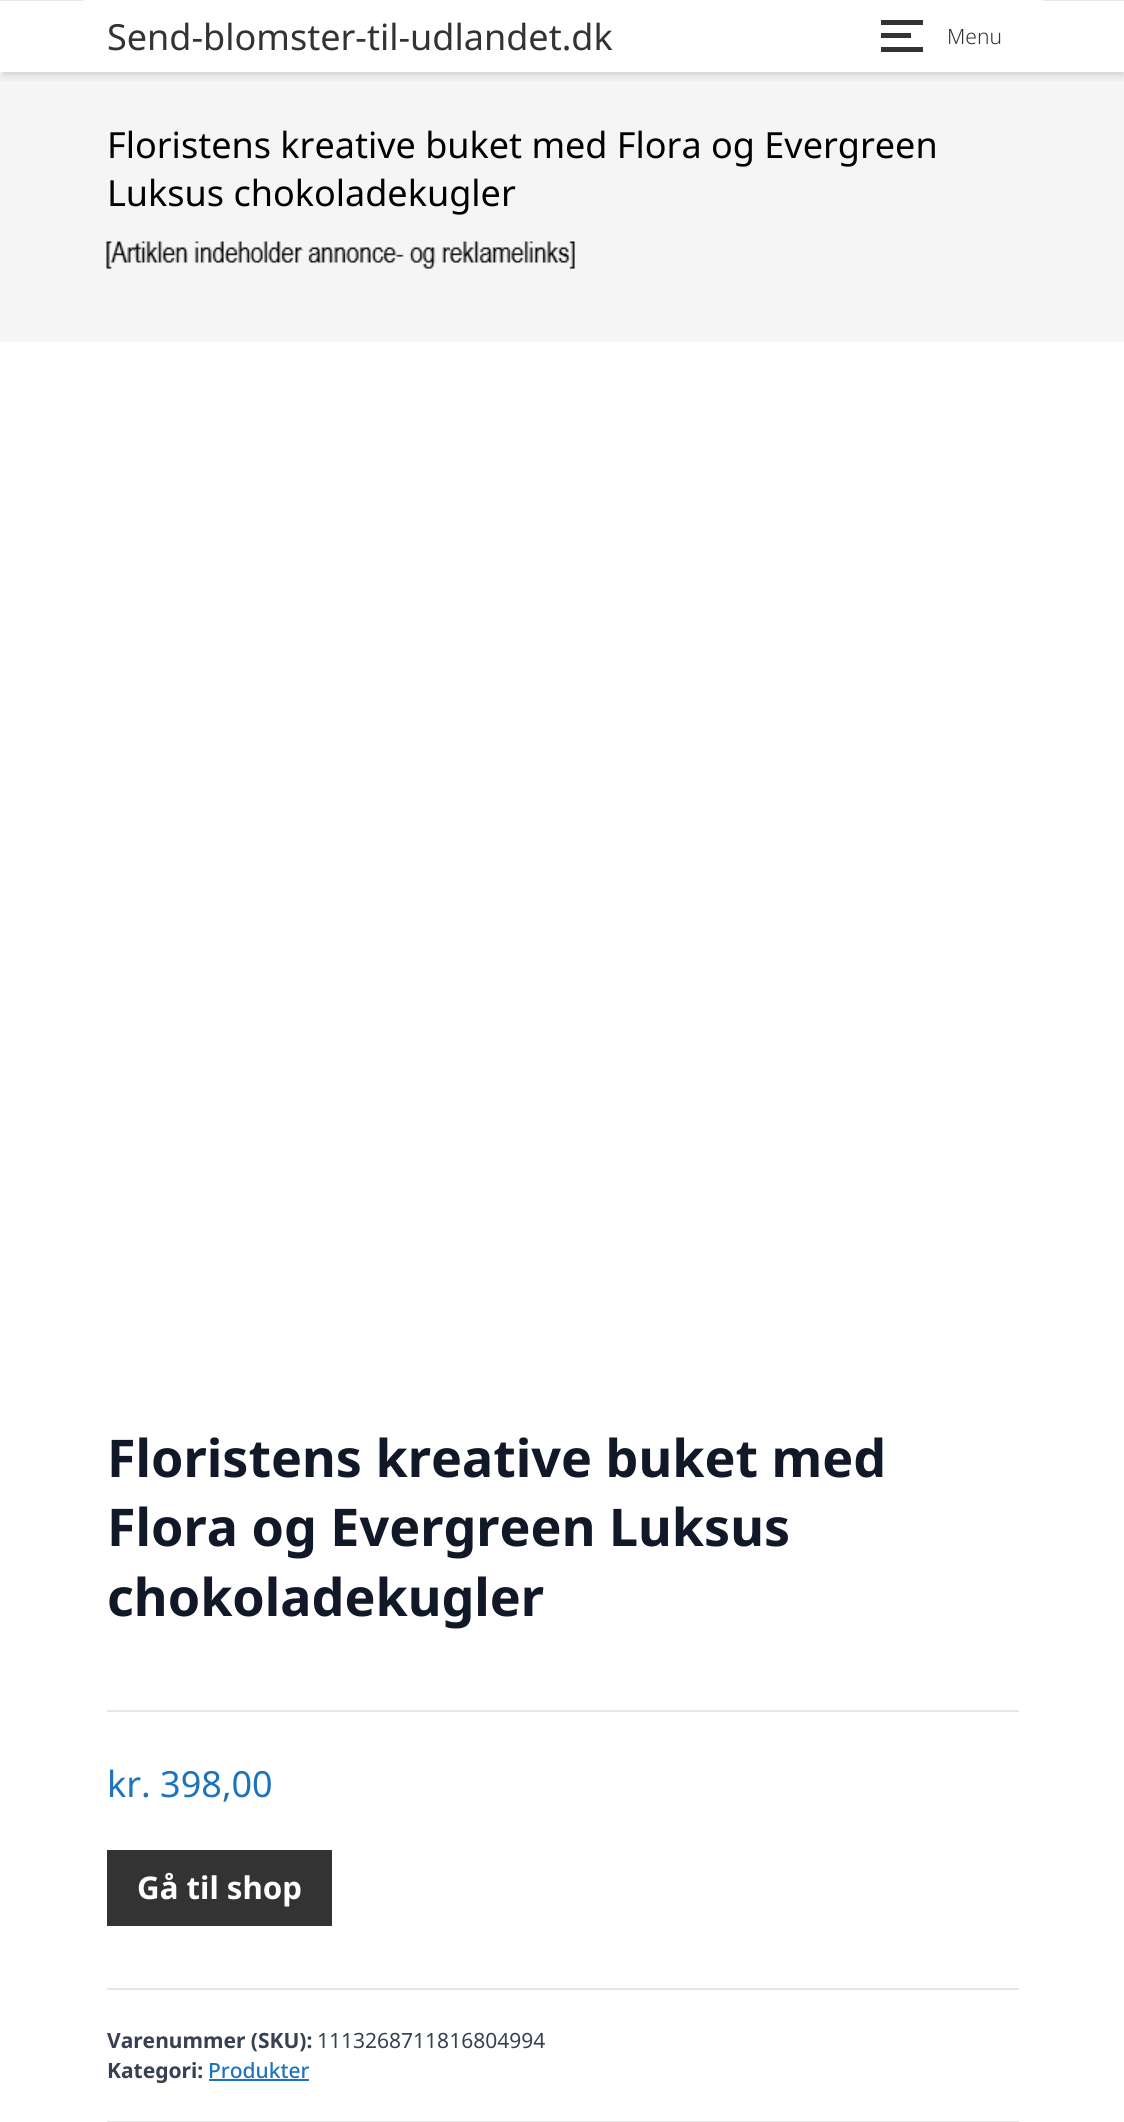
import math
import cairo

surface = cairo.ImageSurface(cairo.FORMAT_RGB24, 1124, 2122)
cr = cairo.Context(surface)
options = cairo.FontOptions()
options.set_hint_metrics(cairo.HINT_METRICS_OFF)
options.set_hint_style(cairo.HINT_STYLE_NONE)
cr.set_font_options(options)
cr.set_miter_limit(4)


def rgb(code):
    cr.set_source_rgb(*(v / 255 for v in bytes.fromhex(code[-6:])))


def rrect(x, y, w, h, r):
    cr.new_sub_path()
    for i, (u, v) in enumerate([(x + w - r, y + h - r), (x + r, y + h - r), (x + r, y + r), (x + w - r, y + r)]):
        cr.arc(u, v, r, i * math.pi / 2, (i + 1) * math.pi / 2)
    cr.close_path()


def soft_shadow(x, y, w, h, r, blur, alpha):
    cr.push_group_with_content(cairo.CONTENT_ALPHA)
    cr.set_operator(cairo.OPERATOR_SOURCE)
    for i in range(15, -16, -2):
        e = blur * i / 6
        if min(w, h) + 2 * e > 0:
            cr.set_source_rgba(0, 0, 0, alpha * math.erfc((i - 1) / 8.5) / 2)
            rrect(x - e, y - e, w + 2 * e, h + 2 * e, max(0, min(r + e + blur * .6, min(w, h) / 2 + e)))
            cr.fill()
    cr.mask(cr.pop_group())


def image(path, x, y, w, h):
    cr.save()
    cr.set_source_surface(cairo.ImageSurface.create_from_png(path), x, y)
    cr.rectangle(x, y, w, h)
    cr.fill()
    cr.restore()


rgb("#ffffff")
cr.paint()
rgb("#f5f5f5")
cr.rectangle(0, 72, 1124, 270)
cr.fill()
cr.save()
cr.rectangle(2, 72, 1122, 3)
cr.clip()
rgb("#000000")
soft_shadow(2, 5, 1122, 69, 0, 3, 0.06)
cr.restore()
cr.save()
cr.rectangle(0, 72, 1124, 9)
cr.clip()
rgb("#000000")
soft_shadow(2, 8, 1122, 69, 0, 4.5, 0.1)
cr.restore()
for x, y, w, h, color in [
    (0, 0, 1124, 1, "#e5e7eb"),
    (83, 0, 960, 1, "#ffffff"),
    (881, 20, 42, 5, "#333333"),
    (881, 33, 30, 5, "#333333"),
    (881, 47, 42, 5, "#333333"),
]:
    rgb(color)
    cr.rectangle(x, y, w, h)
    cr.fill()
image("img/1.png", 106, 241, 469, 28)
for x, y, w, h, color in [
    (107, 1710, 912, 2, "#e5e7eb"),
    (107, 1850, 225, 76, "#333333"),
    (107, 1988, 912, 2, "#e5e7eb"),
    (107, 2121, 912, 1, "#e5e7eb"),
    (209, 2079, 100, 2, "#1e73be"),
]:
    rgb(color)
    cr.rectangle(x, y, w, h)
    cr.fill()
cr.select_font_face("Noto Sans")
cr.set_font_size(36)
rgb("#333333")
cr.move_to(107, 50)
cr.show_text("Send-blomster-til-udlandet.dk")
cr.select_font_face("Noto Sans Light")
cr.set_font_size(21)
cr.move_to(947, 44)
cr.show_text("Menu")
cr.select_font_face("Noto Sans")
cr.set_font_size(36)
rgb("#000000")
cr.move_to(107, 158)
cr.show_text("Floristens kreative buket med Flora og Evergreen")
cr.move_to(107, 206)
cr.show_text("Luksus chokoladekugler")
cr.select_font_face("Noto Sans", cairo.FONT_SLANT_NORMAL, cairo.FONT_WEIGHT_BOLD)
cr.set_font_size(52)
rgb("#111827")
for x, y, s in [
    (107, 1477, "Floristens kreative buket med"),
    (107, 1546, "Flora og Evergreen Luksus"),
    (107, 1616, "chokoladekugler"),
]:
    cr.move_to(x, y)
    cr.show_text(s)
cr.select_font_face("Noto Sans")
cr.set_font_size(36)
rgb("#1e73be")
cr.move_to(107, 1797)
cr.show_text("kr. 398,00")
cr.select_font_face("Noto Sans", cairo.FONT_SLANT_NORMAL, cairo.FONT_WEIGHT_BOLD)
cr.set_font_size(31.25)
rgb("#ffffff")
cr.move_to(137, 1899)
cr.show_text("Gå til shop")
cr.set_font_size(21)
rgb("#374151")
cr.move_to(107, 2048)
cr.show_text("Varenummer (SKU):")
cr.select_font_face("Noto Sans")
cr.move_to(317, 2048)
cr.show_text("1113268711816804994")
cr.select_font_face("Noto Sans", cairo.FONT_SLANT_NORMAL, cairo.FONT_WEIGHT_BOLD)
cr.move_to(107, 2078)
cr.show_text("Kategori:")
cr.select_font_face("Noto Sans Medium")
rgb("#1e73be")
cr.move_to(208, 2078)
cr.show_text("Produkter")
surface.write_to_png("page.png")
